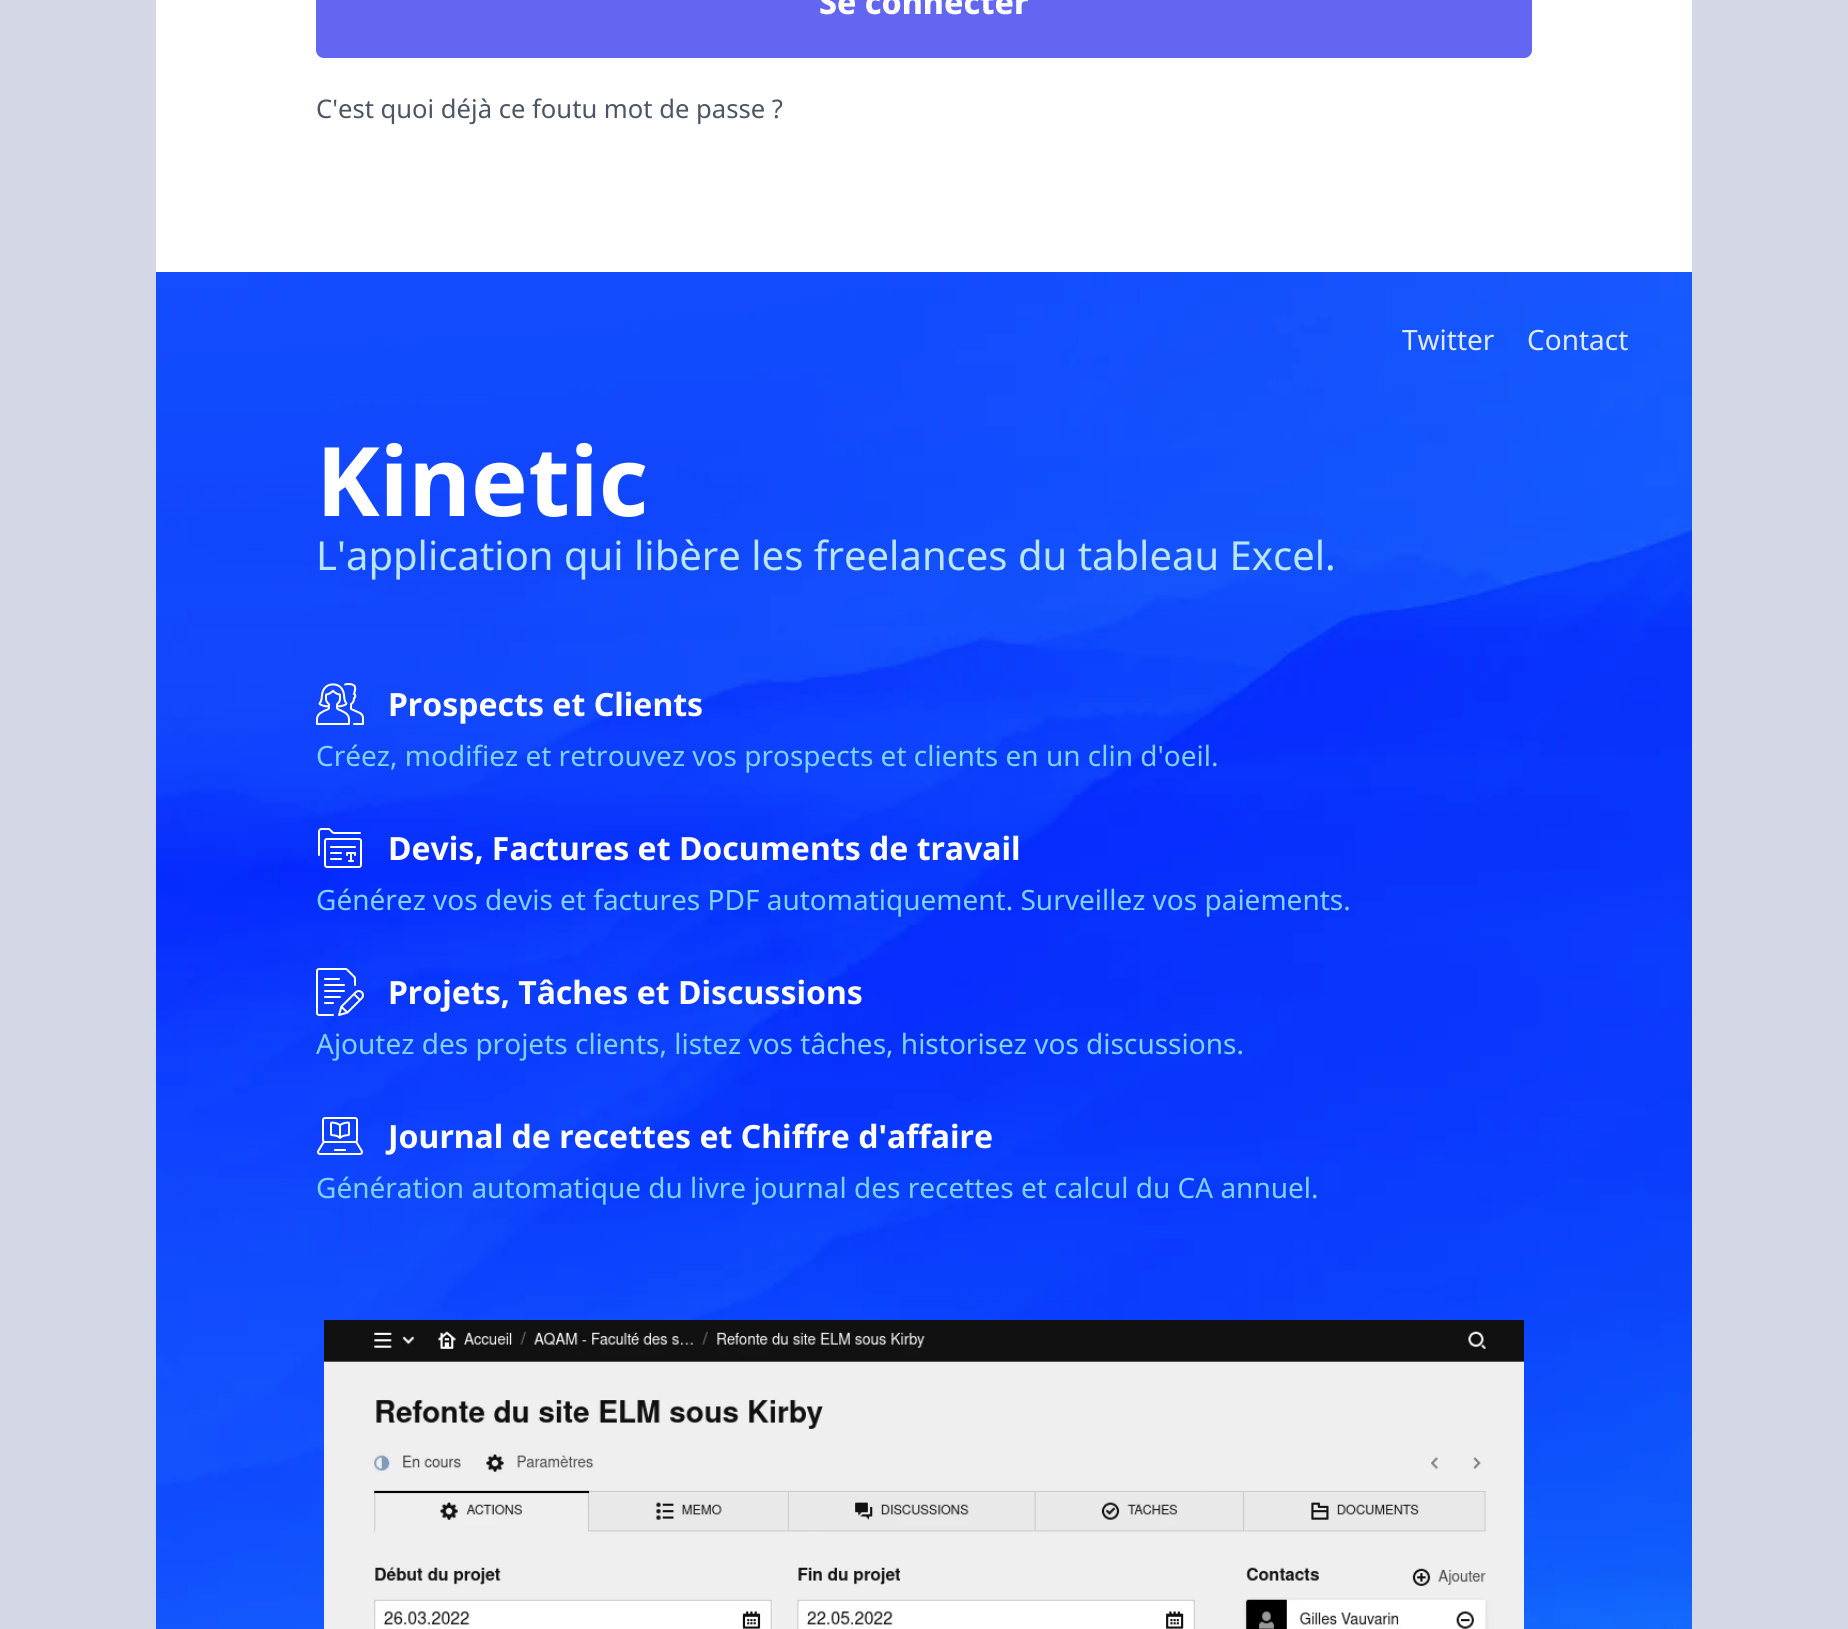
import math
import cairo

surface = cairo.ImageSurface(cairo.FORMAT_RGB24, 1848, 1629)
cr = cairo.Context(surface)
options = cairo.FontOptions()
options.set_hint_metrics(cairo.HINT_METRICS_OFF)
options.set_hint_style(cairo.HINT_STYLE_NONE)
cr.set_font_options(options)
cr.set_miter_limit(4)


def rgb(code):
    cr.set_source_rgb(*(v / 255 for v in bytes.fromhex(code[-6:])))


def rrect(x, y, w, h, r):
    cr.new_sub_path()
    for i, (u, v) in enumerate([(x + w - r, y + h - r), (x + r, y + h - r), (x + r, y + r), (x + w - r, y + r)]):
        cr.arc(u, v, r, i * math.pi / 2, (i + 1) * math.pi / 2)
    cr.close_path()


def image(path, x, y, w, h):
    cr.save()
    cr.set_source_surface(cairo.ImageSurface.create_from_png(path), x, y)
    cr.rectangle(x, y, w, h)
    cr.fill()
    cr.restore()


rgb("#d3d7e6")
cr.paint()
rgb("#ffffff")
cr.rectangle(156, 0, 1536, 272)
cr.fill()
rgb("#6366f1")
rrect(316, -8, 1216, 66, 8)
cr.fill()
image("img/1.png", 156, 272, 1536, 1357)
image("img/2.png", 316, 683, 48, 42)
image("img/3.png", 318, 828, 44, 40)
image("img/4.png", 316, 968, 48, 48)
image("img/5.png", 317, 1117, 46, 38)
image("img/6.png", 324, 1320, 1200, 309)
cr.select_font_face("Noto Sans ExtraBold")
cr.set_font_size(32)
rgb("#ffffff")
cr.move_to(819, 14)
cr.show_text("Se connecter")
cr.select_font_face("Noto Sans")
cr.set_font_size(25.6)
rgb("#4b5563")
cr.move_to(316, 118)
cr.show_text("C'est quoi déjà ce foutu mot de passe ?")
cr.set_font_size(28)
rgb("#dbeafe")
cr.move_to(1402, 350)
cr.show_text("Twitter")
cr.move_to(1527, 350)
cr.show_text("Contact")
cr.select_font_face("Noto Sans", cairo.FONT_SLANT_NORMAL, cairo.FONT_WEIGHT_BOLD)
cr.set_font_size(96)
rgb("#ffffff")
cr.move_to(316, 516)
cr.show_text("Kinetic")
cr.select_font_face("Noto Sans")
cr.set_font_size(40)
rgb("#bae6fd")
cr.move_to(316, 570)
cr.show_text("L'application qui libère les freelances du tableau Excel.")
cr.select_font_face("Noto Sans", cairo.FONT_SLANT_NORMAL, cairo.FONT_WEIGHT_BOLD)
cr.set_font_size(32)
rgb("#ffffff")
cr.move_to(388, 716)
cr.show_text("Prospects et Clients")
cr.select_font_face("Noto Sans")
cr.set_font_size(28)
rgb("#7dd3fc")
cr.move_to(316, 766)
cr.show_text("Créez, modifiez et retrouvez vos prospects et clients en un clin d'oeil.")
cr.select_font_face("Noto Sans", cairo.FONT_SLANT_NORMAL, cairo.FONT_WEIGHT_BOLD)
cr.set_font_size(32)
rgb("#ffffff")
cr.move_to(388, 860)
cr.show_text("Devis, Factures et Documents de travail")
cr.select_font_face("Noto Sans")
cr.set_font_size(28)
rgb("#7dd3fc")
cr.move_to(316, 910)
cr.show_text("Générez vos devis et factures PDF automatiquement. Surveillez vos paiements.")
cr.select_font_face("Noto Sans", cairo.FONT_SLANT_NORMAL, cairo.FONT_WEIGHT_BOLD)
cr.set_font_size(32)
rgb("#ffffff")
cr.move_to(388, 1004)
cr.show_text("Projets, Tâches et Discussions")
cr.select_font_face("Noto Sans")
cr.set_font_size(28)
rgb("#7dd3fc")
cr.move_to(316, 1054)
cr.show_text("Ajoutez des projets clients, listez vos tâches, historisez vos discussions.")
cr.select_font_face("Noto Sans", cairo.FONT_SLANT_NORMAL, cairo.FONT_WEIGHT_BOLD)
cr.set_font_size(32)
rgb("#ffffff")
cr.move_to(388, 1148)
cr.show_text("Journal de recettes et Chiffre d'affaire")
cr.select_font_face("Noto Sans")
cr.set_font_size(28)
rgb("#7dd3fc")
cr.move_to(316, 1198)
cr.show_text("Génération automatique du livre journal des recettes et calcul du CA annuel.")
surface.write_to_png("page.png")
